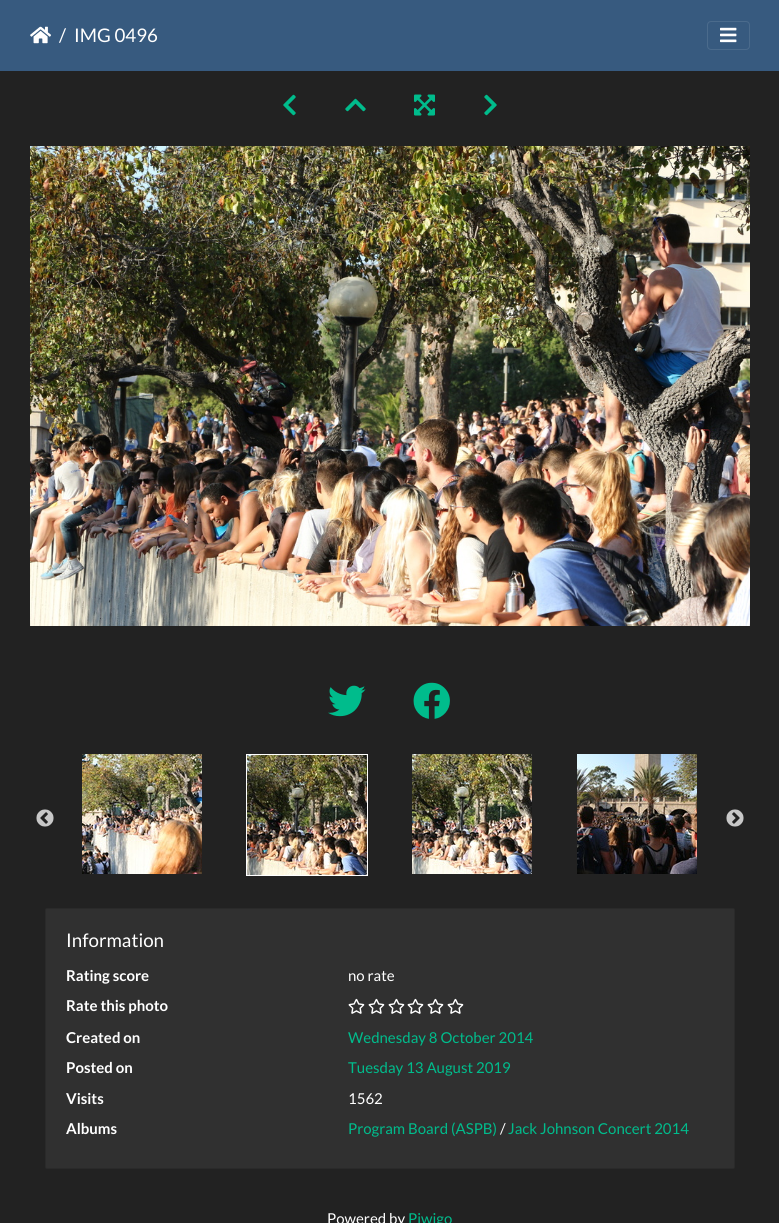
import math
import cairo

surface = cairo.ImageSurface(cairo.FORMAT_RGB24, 779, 1223)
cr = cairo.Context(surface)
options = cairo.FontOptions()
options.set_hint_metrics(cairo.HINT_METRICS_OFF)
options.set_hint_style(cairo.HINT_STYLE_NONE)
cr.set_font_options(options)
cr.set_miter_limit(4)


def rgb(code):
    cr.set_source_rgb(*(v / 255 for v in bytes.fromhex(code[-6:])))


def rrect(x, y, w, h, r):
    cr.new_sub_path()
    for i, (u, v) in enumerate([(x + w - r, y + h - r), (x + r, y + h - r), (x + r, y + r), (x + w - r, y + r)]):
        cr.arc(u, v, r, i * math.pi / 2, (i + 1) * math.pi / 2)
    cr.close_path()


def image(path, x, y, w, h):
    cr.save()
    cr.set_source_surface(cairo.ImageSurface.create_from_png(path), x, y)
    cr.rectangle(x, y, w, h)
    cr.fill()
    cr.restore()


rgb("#222222")
cr.paint()
rgb("#375a7f")
cr.rectangle(0, 0, 779, 71)
cr.fill()
image("img/1.png", 30, 26, 21, 18)
rrect(707.5, 21.5, 42, 28, 3.5)
rgb("#4b6b8c")
cr.set_line_width(1)
cr.stroke()
image("img/2.png", 720, 27, 17, 16)
image("img/3.png", 283, 94, 13, 22)
image("img/4.png", 345, 98, 21, 14)
image("img/5.png", 414, 94, 21, 22)
image("img/6.png", 484, 94, 13, 22)
image("img/7.png", 30, 146, 720, 480)
image("img/8.png", 328, 685, 38, 32)
image("img/9.png", 413, 682, 37, 37)
image("img/10.png", 36, 809, 18, 18)
image("img/11.png", 82, 754, 120, 120)
cr.rectangle(246.5, 754.5, 121, 121)
rgb("#ffffff")
cr.stroke()
image("img/12.png", 247, 755, 120, 120)
image("img/13.png", 412, 754, 120, 120)
image("img/14.png", 577, 754, 120, 120)
image("img/15.png", 726, 809, 18, 18)
rgb("#303030")
rrect(45.5, 908.5, 689, 260, 1.5)
cr.fill_preserve()
rgb("#2a2a2a")
cr.stroke()
image("img/16.png", 348, 998, 17, 16)
image("img/16.png", 368, 998, 17, 16)
image("img/16.png", 388, 998, 17, 16)
image("img/16.png", 407, 998, 17, 16)
image("img/16.png", 427, 998, 17, 16)
image("img/16.png", 447, 998, 17, 16)
cr.select_font_face("Lato")
cr.set_font_size(18.75)
rgb("#ffffff")
for x, y, s in [
    (59, 42, "/"),
    (74, 42, "IMG 0496"),
    (66, 947, "Information"),
]:
    cr.move_to(x, y)
    cr.show_text(s)
cr.select_font_face("Lato", cairo.FONT_SLANT_NORMAL, cairo.FONT_WEIGHT_BOLD)
cr.set_font_size(15)
cr.move_to(66, 981)
cr.show_text("Rating score")
cr.select_font_face("Lato")
cr.move_to(348, 981)
cr.show_text("no rate")
cr.select_font_face("Lato", cairo.FONT_SLANT_NORMAL, cairo.FONT_WEIGHT_BOLD)
cr.move_to(66, 1011)
cr.show_text("Rate this photo")
cr.move_to(66, 1043)
cr.show_text("Created on")
cr.select_font_face("Lato")
rgb("#00bc8c")
cr.move_to(348, 1043)
cr.show_text("Wednesday 8 October 2014")
cr.select_font_face("Lato", cairo.FONT_SLANT_NORMAL, cairo.FONT_WEIGHT_BOLD)
rgb("#ffffff")
cr.move_to(66, 1073)
cr.show_text("Posted on")
cr.select_font_face("Lato")
rgb("#00bc8c")
cr.move_to(348, 1073)
cr.show_text("Tuesday 13 August 2019")
cr.select_font_face("Lato", cairo.FONT_SLANT_NORMAL, cairo.FONT_WEIGHT_BOLD)
rgb("#ffffff")
cr.move_to(66, 1104)
cr.show_text("Visits")
cr.select_font_face("Lato")
cr.move_to(348, 1104)
cr.show_text("1562")
cr.select_font_face("Lato", cairo.FONT_SLANT_NORMAL, cairo.FONT_WEIGHT_BOLD)
cr.move_to(66, 1134)
cr.show_text("Albums")
cr.select_font_face("Lato")
rgb("#00bc8c")
cr.move_to(348, 1134)
cr.show_text("Program Board (ASPB)")
rgb("#ffffff")
cr.move_to(500, 1134)
cr.show_text("/")
rgb("#00bc8c")
cr.move_to(508, 1134)
cr.show_text("Jack Johnson Concert 2014")
rgb("#ffffff")
cr.move_to(327, 1224)
cr.show_text("Powered by")
rgb("#00bc8c")
cr.move_to(408, 1224)
cr.show_text("Piwigo")
surface.write_to_png("page.png")
